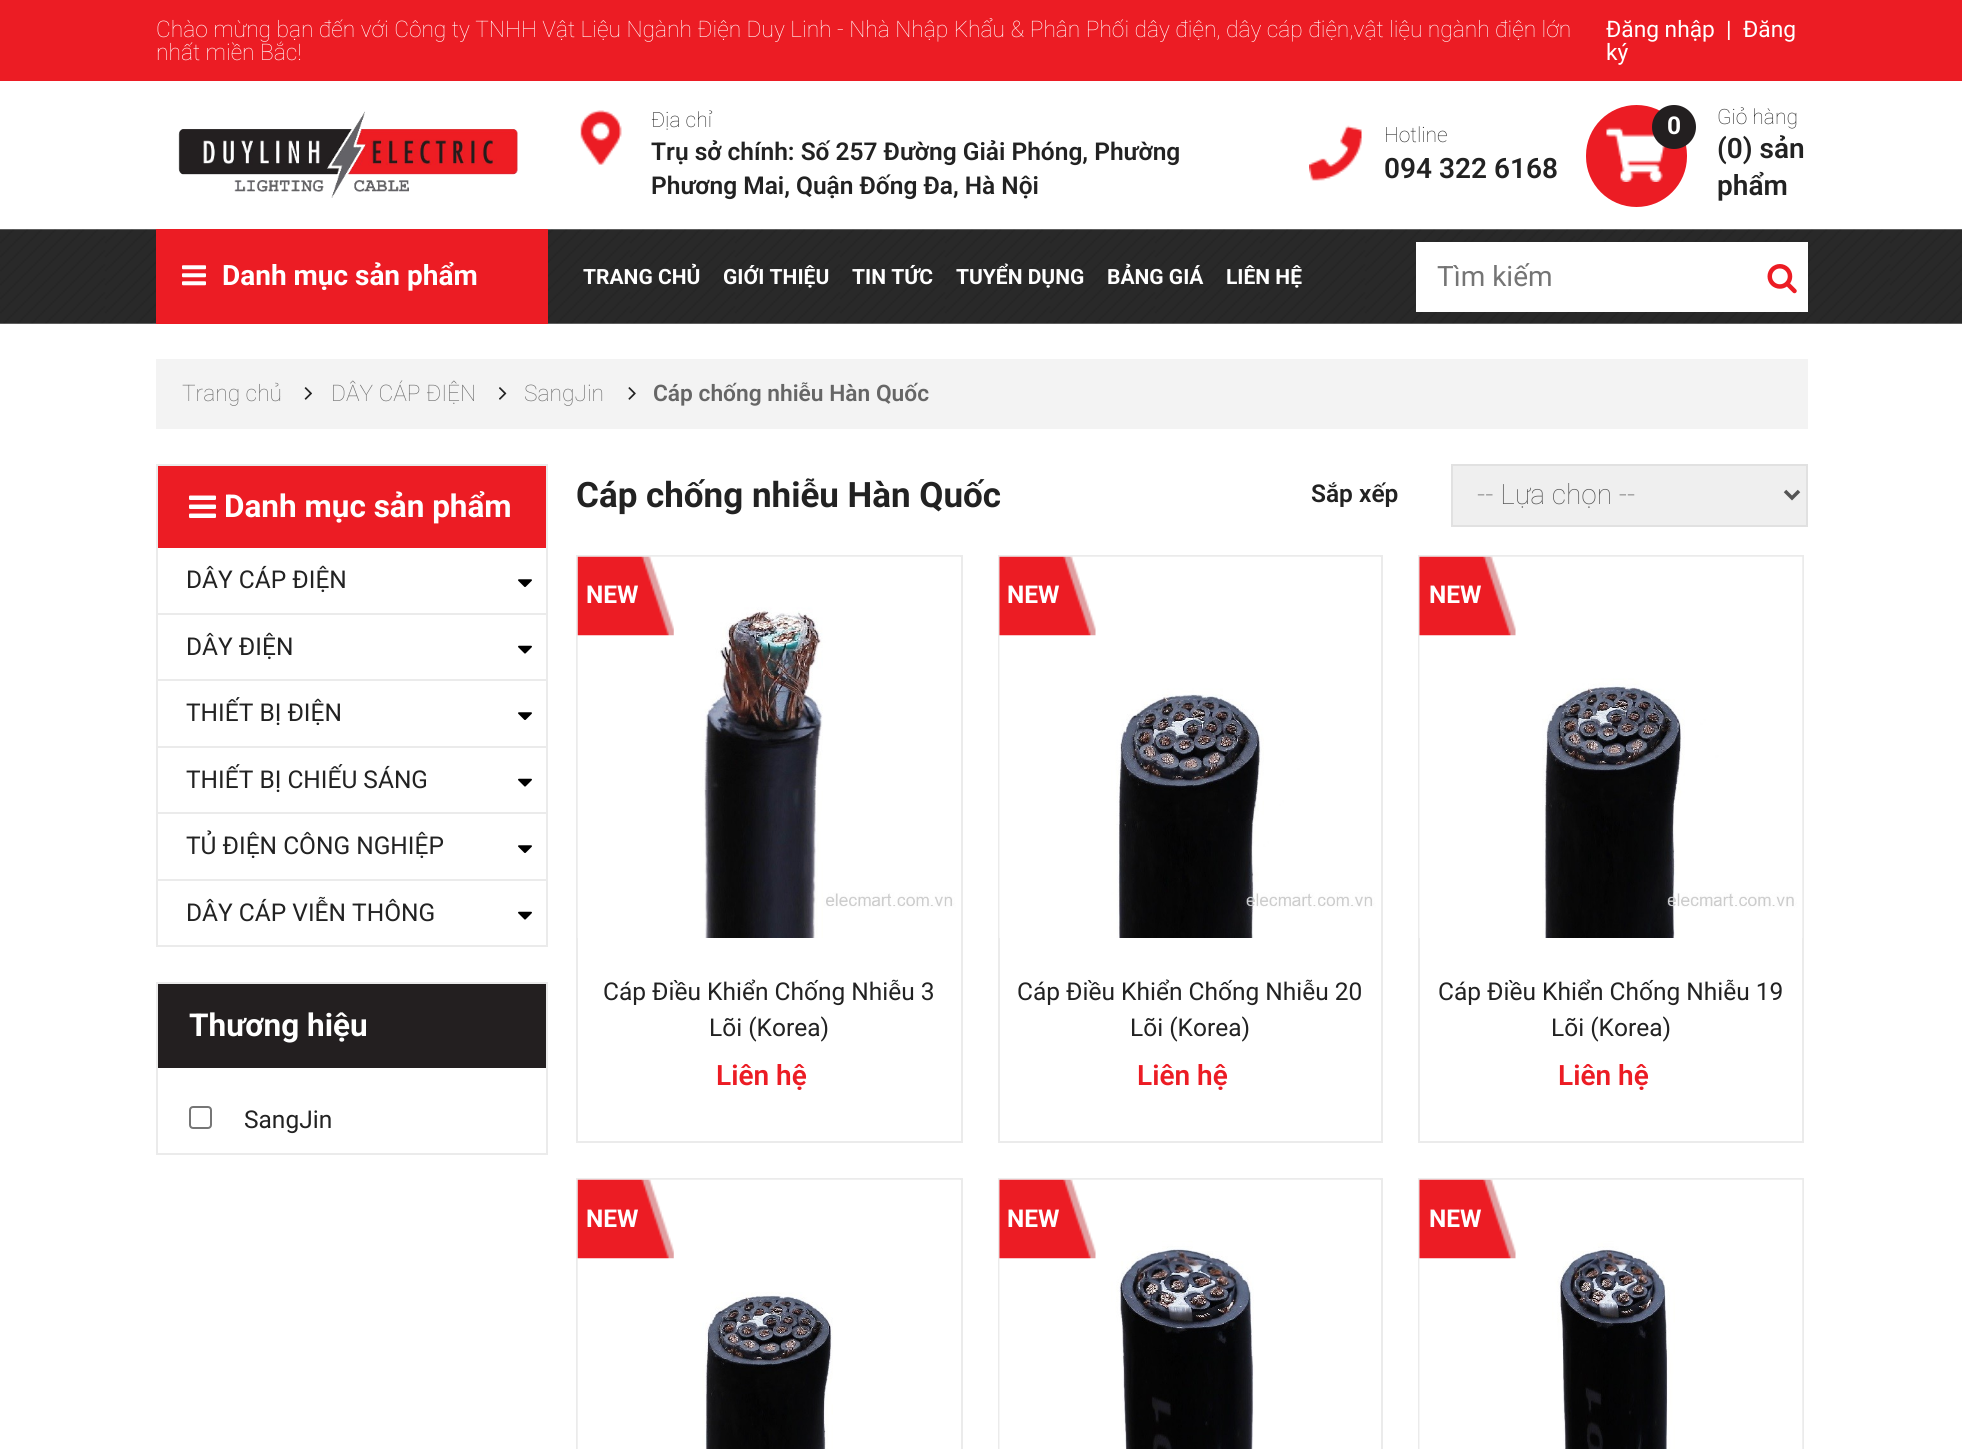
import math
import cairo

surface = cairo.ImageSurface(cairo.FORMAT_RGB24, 1962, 1449)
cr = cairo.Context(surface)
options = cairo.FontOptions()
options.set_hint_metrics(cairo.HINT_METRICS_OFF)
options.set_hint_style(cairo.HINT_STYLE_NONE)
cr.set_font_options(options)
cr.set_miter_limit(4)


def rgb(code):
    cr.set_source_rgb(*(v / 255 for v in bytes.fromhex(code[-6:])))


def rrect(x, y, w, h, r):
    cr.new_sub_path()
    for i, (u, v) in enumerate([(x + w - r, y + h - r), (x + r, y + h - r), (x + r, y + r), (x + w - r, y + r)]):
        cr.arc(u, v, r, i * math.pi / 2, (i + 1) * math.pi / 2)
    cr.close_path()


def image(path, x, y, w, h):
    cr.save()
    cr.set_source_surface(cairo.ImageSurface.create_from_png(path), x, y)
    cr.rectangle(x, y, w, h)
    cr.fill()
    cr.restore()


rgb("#ffffff")
cr.paint()
rgb("#ec1c24")
cr.rectangle(0, 0, 1962, 81)
cr.fill()
image("img/1.png", 178, 111, 340, 87)
image("img/2.png", 580, 110, 42, 55)
image("img/3.png", 1309, 125, 53, 56)
rrect(1586, 105, 101, 102, 50.5)
cr.fill()
image("img/4.png", 1606, 127, 59, 55)
rgb("#231f20")
cr.arc(1674, 127, 22, 0, 2 * math.pi)
cr.fill()
image("img/5.png", 0, 229, 1962, 95)
rgb("#ec1c24")
cr.rectangle(156, 229, 392, 95)
cr.fill()
image("img/6.png", 182, 265, 24, 21)
rgb("#ffffff")
cr.rectangle(1416, 242, 392, 70)
cr.fill()
image("img/7.png", 1767, 264, 30, 30)
rgb("#f3f3f3")
cr.rectangle(156, 359, 1652, 70)
cr.fill()
image("img/8.png", 304, 387, 8, 13)
image("img/9.png", 499, 387, 8, 13)
image("img/10.png", 628, 387, 8, 13)
cr.rectangle(157, 465, 390, 481)
rgb("#ebebeb")
cr.stroke()
rgb("#ec1c24")
cr.rectangle(158, 466, 388, 82)
cr.fill()
image("img/11.png", 189, 495, 27, 23)
rgb("#ebebeb")
cr.rectangle(158, 613, 388, 2)
cr.fill()
image("img/12.png", 518, 579, 14, 8)
cr.rectangle(158, 679, 388, 2)
cr.fill()
image("img/13.png", 518, 645, 14, 9)
cr.rectangle(158, 746, 388, 2)
cr.fill()
image("img/12.png", 518, 712, 14, 8)
cr.rectangle(158, 812, 388, 2)
cr.fill()
image("img/13.png", 518, 778, 14, 9)
cr.rectangle(158, 879, 388, 2)
cr.fill()
image("img/12.png", 518, 845, 14, 8)
image("img/13.png", 518, 911, 14, 9)
cr.rectangle(157, 983, 390, 171)
cr.stroke()
rgb("#231f20")
cr.rectangle(158, 984, 388, 84)
cr.fill()
rrect(190, 1107, 21, 21, 3)
rgb("#767676")
cr.stroke()
rgb("#efefef")
cr.rectangle(1452, 465, 355, 61)
cr.fill_preserve()
rgb("#e1e1e1")
cr.stroke()
cr.new_path()
cr.move_to(1785, 491)
cr.line_to(1792, 498)
cr.line_to(1799, 491)
rgb("#555555")
cr.set_line_width(3.5)
cr.stroke()
cr.rectangle(577, 556, 385, 586)
rgb("#ebebeb")
cr.set_line_width(2)
cr.stroke()
image("img/14.png", 577, 556, 383, 382)
image("img/15.png", 577, 556, 97, 80)
cr.rectangle(999, 556, 383, 586)
cr.stroke()
image("img/16.png", 999, 556, 381, 382)
image("img/17.png", 999, 556, 97, 80)
cr.rectangle(1419, 556, 384, 586)
cr.stroke()
image("img/18.png", 1419, 556, 384, 382)
image("img/17.png", 1419, 556, 97, 80)
cr.rectangle(577, 1179, 385, 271)
cr.stroke()
image("img/19.png", 577, 1179, 383, 270)
image("img/15.png", 577, 1179, 97, 80)
cr.rectangle(999, 1179, 383, 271)
cr.stroke()
image("img/20.png", 999, 1179, 381, 270)
image("img/17.png", 999, 1179, 97, 80)
cr.rectangle(1419, 1179, 384, 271)
cr.stroke()
image("img/21.png", 1419, 1179, 384, 270)
image("img/17.png", 1419, 1179, 97, 80)
cr.select_font_face("Roboto Thin")
cr.set_font_size(22.75)
rgb("#ffffff")
cr.move_to(156, 37)
cr.show_text("Chào mừng bạn đến với Công ty TNHH Vật Liệu Ngành Điện Duy Linh - Nhà Nhập Khẩu & Phân Phối dây điện, dây cáp điện,vật liệu ngành điện lớn")
cr.move_to(156, 60)
cr.show_text("nhất miền Bắc!")
cr.select_font_face("Roboto")
for x, y, s in [
    (1606, 37, "Đăng nhập"),
    (1726, 37, "|"),
    (1743, 37, "Đăng"),
    (1606, 60, "ký"),
]:
    cr.move_to(x, y)
    cr.show_text(s)
cr.select_font_face("Roboto Thin")
cr.set_font_size(21)
rgb("#222222")
cr.move_to(651, 127)
cr.show_text("Địa chỉ")
cr.select_font_face("Roboto SemiBold")
cr.set_font_size(24.5)
cr.move_to(651, 160)
cr.show_text("Trụ sở chính: Số 257 Đường Giải Phóng, Phường")
cr.move_to(651, 194)
cr.show_text("Phương Mai, Quận Đống Đa, Hà Nội")
cr.select_font_face("Roboto Thin")
cr.set_font_size(21)
cr.move_to(1384, 142)
cr.show_text("Hotline")
cr.select_font_face("Roboto SemiBold")
cr.set_font_size(28)
cr.move_to(1384, 178)
cr.show_text("094 322 6168")
cr.select_font_face("Roboto", cairo.FONT_SLANT_NORMAL, cairo.FONT_WEIGHT_BOLD)
cr.set_font_size(24.5)
rgb("#ffffff")
cr.move_to(1667, 134)
cr.show_text("0")
cr.select_font_face("Roboto Thin")
cr.set_font_size(21)
rgb("#222222")
cr.move_to(1717, 124)
cr.show_text("Giỏ hàng")
cr.select_font_face("Roboto SemiBold")
cr.set_font_size(28)
cr.move_to(1717, 158)
cr.show_text("(0) sản")
cr.move_to(1717, 195)
cr.show_text("phẩm")
cr.select_font_face("Roboto", cairo.FONT_SLANT_NORMAL, cairo.FONT_WEIGHT_BOLD)
rgb("#ffffff")
cr.move_to(222, 285)
cr.show_text("Danh mục sản phẩm")
cr.set_font_size(21)
for x, y, s in [
    (583, 284, "TRANG CHỦ"),
    (723, 284, "GIỚI THIỆU"),
    (852, 284, "TIN TỨC"),
    (956, 284, "TUYỂN DỤNG"),
    (1107, 284, "BẢNG GIÁ"),
    (1226, 284, "LIÊN HỆ"),
]:
    cr.move_to(x, y)
    cr.show_text(s)
cr.select_font_face("Roboto")
cr.set_font_size(28)
rgb("#757575")
cr.move_to(1437, 286)
cr.show_text("Tìm kiếm")
cr.select_font_face("Roboto Thin")
cr.set_font_size(22.75)
rgb("#666666")
for x, y, s in [
    (182, 401, "Trang chủ"),
    (331, 401, "DÂY CÁP ĐIỆN"),
    (524, 401, "SangJin"),
]:
    cr.move_to(x, y)
    cr.show_text(s)
cr.select_font_face("Roboto SemiBold")
cr.move_to(653, 401)
cr.show_text("Cáp chống nhiễu Hàn Quốc")
cr.select_font_face("Roboto", cairo.FONT_SLANT_NORMAL, cairo.FONT_WEIGHT_BOLD)
cr.set_font_size(31.5)
rgb("#ffffff")
cr.move_to(224, 517)
cr.show_text("Danh mục sản phẩm")
cr.select_font_face("Roboto")
cr.set_font_size(24.5)
rgb("#222222")
for x, y, s in [
    (186, 588, "DÂY CÁP ĐIỆN"),
    (186, 655, "DÂY ĐIỆN"),
    (186, 721, "THIẾT BỊ ĐIỆN"),
    (186, 788, "THIẾT BỊ CHIẾU SÁNG"),
    (186, 854, "TỦ ĐIỆN CÔNG NGHIỆP"),
    (186, 921, "DÂY CÁP VIỄN THÔNG"),
]:
    cr.move_to(x, y)
    cr.show_text(s)
cr.select_font_face("Roboto", cairo.FONT_SLANT_NORMAL, cairo.FONT_WEIGHT_BOLD)
cr.set_font_size(31.5)
rgb("#ffffff")
cr.move_to(189, 1036)
cr.show_text("Thương hiệu")
cr.select_font_face("Roboto")
cr.set_font_size(24.5)
rgb("#222222")
cr.move_to(244, 1128)
cr.show_text("SangJin")
cr.select_font_face("Roboto", cairo.FONT_SLANT_NORMAL, cairo.FONT_WEIGHT_BOLD)
cr.set_font_size(35)
cr.move_to(576, 507)
cr.show_text("Cáp chống nhiễu Hàn Quốc")
cr.select_font_face("Roboto SemiBold")
cr.set_font_size(24.5)
cr.move_to(1311, 502)
cr.show_text("Sắp xếp")
cr.select_font_face("Roboto Thin")
cr.set_font_size(28)
rgb("#555555")
cr.move_to(1477, 504)
cr.show_text("-- Lựa chọn --")
cr.select_font_face("Roboto", cairo.FONT_SLANT_NORMAL, cairo.FONT_WEIGHT_BOLD)
cr.set_font_size(24.5)
rgb("#ffffff")
cr.move_to(586, 603)
cr.show_text("NEW")
cr.select_font_face("Roboto")
rgb("#222222")
cr.move_to(603, 1000)
cr.show_text("Cáp Điều Khiển Chống Nhiễu 3")
cr.move_to(709, 1036)
cr.show_text("Lõi (Korea)")
cr.select_font_face("Roboto SemiBold")
cr.set_font_size(28)
rgb("#ec1c24")
cr.move_to(716, 1085)
cr.show_text("Liên hệ")
cr.select_font_face("Roboto", cairo.FONT_SLANT_NORMAL, cairo.FONT_WEIGHT_BOLD)
cr.set_font_size(24.5)
rgb("#ffffff")
cr.move_to(1007, 603)
cr.show_text("NEW")
cr.select_font_face("Roboto")
rgb("#222222")
cr.move_to(1017, 1000)
cr.show_text("Cáp Điều Khiển Chống Nhiễu 20")
cr.move_to(1130, 1036)
cr.show_text("Lõi (Korea)")
cr.select_font_face("Roboto SemiBold")
cr.set_font_size(28)
rgb("#ec1c24")
cr.move_to(1137, 1085)
cr.show_text("Liên hệ")
cr.select_font_face("Roboto", cairo.FONT_SLANT_NORMAL, cairo.FONT_WEIGHT_BOLD)
cr.set_font_size(24.5)
rgb("#ffffff")
cr.move_to(1429, 603)
cr.show_text("NEW")
cr.select_font_face("Roboto")
rgb("#222222")
cr.move_to(1438, 1000)
cr.show_text("Cáp Điều Khiển Chống Nhiễu 19")
cr.move_to(1551, 1036)
cr.show_text("Lõi (Korea)")
cr.select_font_face("Roboto SemiBold")
cr.set_font_size(28)
rgb("#ec1c24")
cr.move_to(1558, 1085)
cr.show_text("Liên hệ")
cr.select_font_face("Roboto", cairo.FONT_SLANT_NORMAL, cairo.FONT_WEIGHT_BOLD)
cr.set_font_size(24.5)
rgb("#ffffff")
for x, y, s in [
    (586, 1227, "NEW"),
    (1007, 1227, "NEW"),
    (1429, 1227, "NEW"),
]:
    cr.move_to(x, y)
    cr.show_text(s)
surface.write_to_png("page.png")
